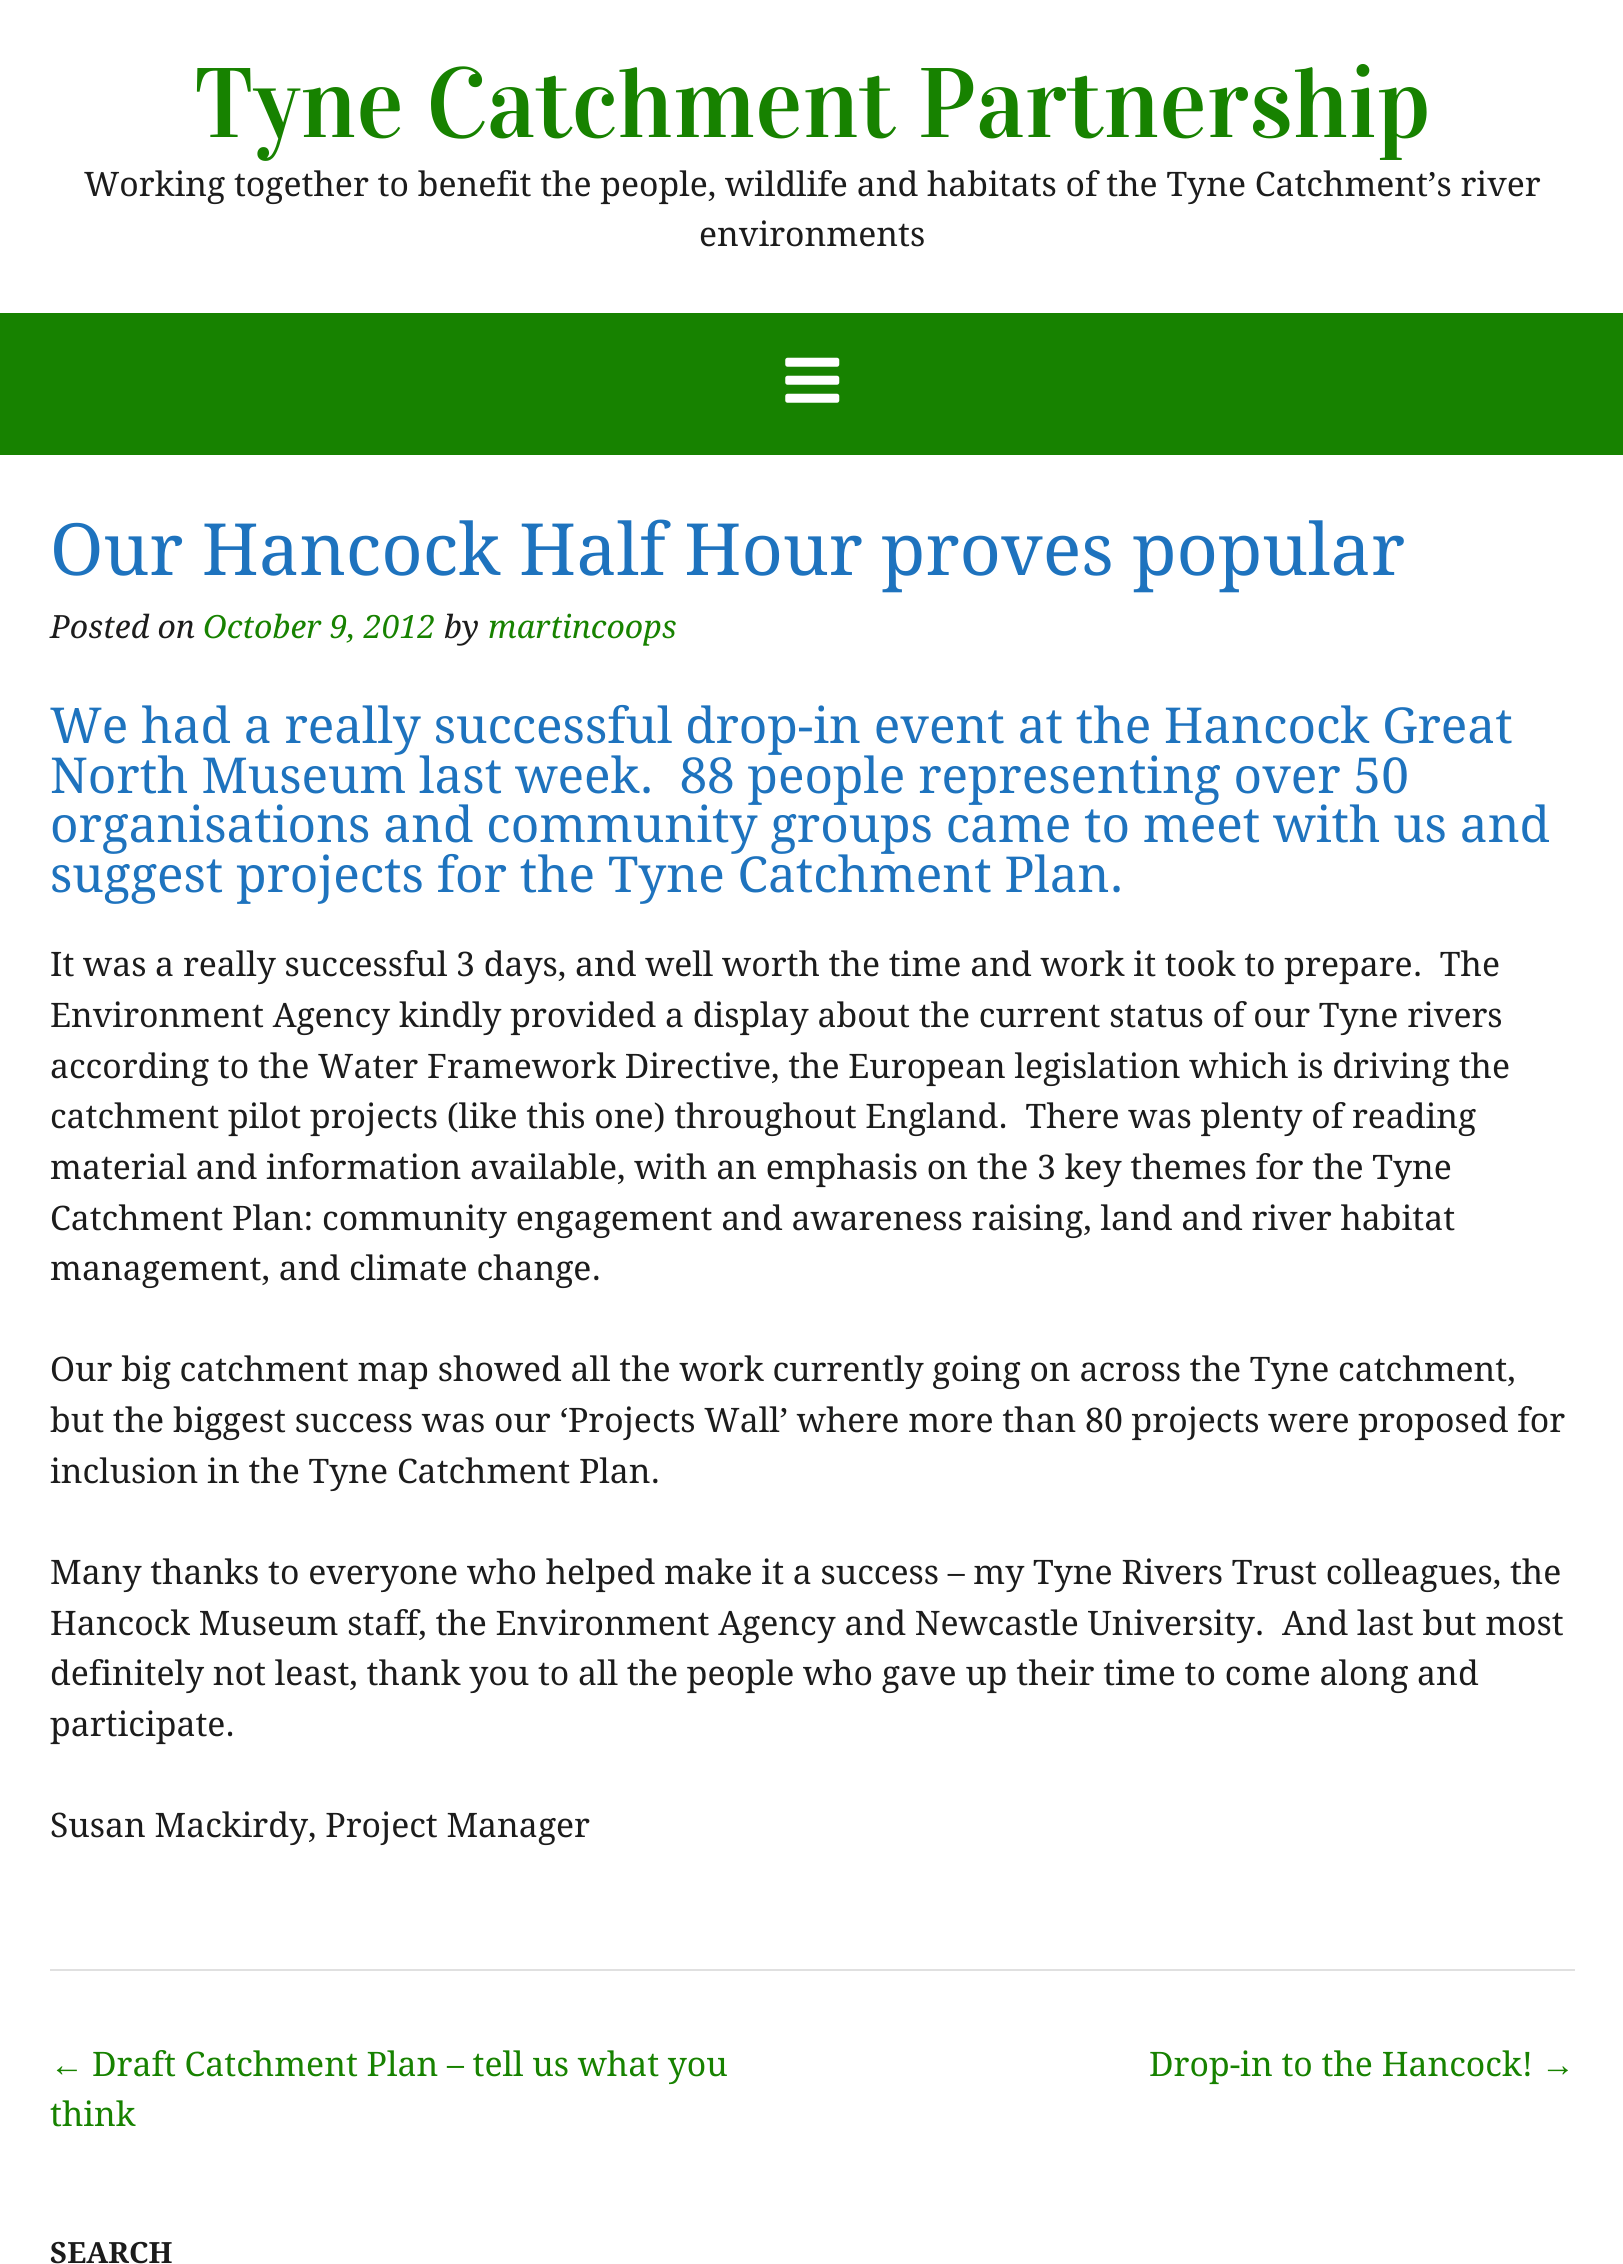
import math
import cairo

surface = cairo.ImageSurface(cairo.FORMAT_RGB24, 1623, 2264)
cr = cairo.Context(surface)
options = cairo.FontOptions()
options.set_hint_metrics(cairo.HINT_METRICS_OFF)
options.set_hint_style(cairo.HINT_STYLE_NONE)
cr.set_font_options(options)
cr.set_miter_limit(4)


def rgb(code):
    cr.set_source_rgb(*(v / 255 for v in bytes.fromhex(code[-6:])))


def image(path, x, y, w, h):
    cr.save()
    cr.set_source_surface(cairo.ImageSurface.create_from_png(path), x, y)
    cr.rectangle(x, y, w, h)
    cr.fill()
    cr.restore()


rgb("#ffffff")
cr.paint()
rgb("#178200")
cr.rectangle(0, 313, 1623, 142)
cr.fill()
image("img/1.png", 785, 357, 55, 46)
rgb("#e0e0e0")
cr.rectangle(50, 1969, 1525, 2)
cr.fill()
cr.select_font_face("Vidaloka")
cr.set_font_size(99)
rgb("#178200")
cr.move_to(194, 137)
cr.show_text("Tyne Catchment Partnership")
cr.select_font_face("Droid Serif")
cr.set_font_size(33.75)
rgb("#1c1c1c")
cr.move_to(84, 196)
cr.show_text("Working together to benefit the people, wildlife and habitats of the Tyne Catchment’s river")
cr.move_to(699, 246)
cr.show_text("environments")
cr.set_font_size(72)
rgb("#1e73be")
cr.move_to(50, 575)
cr.show_text("Our Hancock Half Hour proves popular")
cr.select_font_face("Droid Serif", cairo.FONT_SLANT_ITALIC)
cr.set_font_size(32)
rgb("#1c1c1c")
cr.move_to(50, 638)
cr.show_text("Posted on")
rgb("#178200")
cr.move_to(203, 638)
cr.show_text("October 9, 2012")
rgb("#1c1c1c")
cr.move_to(444, 638)
cr.show_text("by")
rgb("#178200")
cr.move_to(488, 638)
cr.show_text("martincoops")
cr.select_font_face("Droid Serif")
cr.set_font_size(49.5)
rgb("#1e73be")
for x, y, s in [
    (50, 743, "We had a really successful drop-in event at the Hancock Great"),
    (50, 793, "North Museum last week.  88 people representing over 50"),
    (50, 842, "organisations and community groups came to meet with us and"),
    (50, 892, "suggest projects for the Tyne Catchment Plan."),
]:
    cr.move_to(x, y)
    cr.show_text(s)
cr.set_font_size(33.75)
rgb("#1c1c1c")
for x, y, s in [
    (50, 976, "It was a really successful 3 days, and well worth the time and work it took to prepare.  The"),
    (50, 1027, "Environment Agency kindly provided a display about the current status of our Tyne rivers"),
    (50, 1078, "according to the Water Framework Directive, the European legislation which is driving the"),
    (50, 1128, "catchment pilot projects (like this one) throughout England.  There was plenty of reading"),
    (50, 1179, "material and information available, with an emphasis on the 3 key themes for the Tyne"),
    (50, 1230, "Catchment Plan: community engagement and awareness raising, land and river habitat"),
    (50, 1280, "management, and climate change."),
    (50, 1381, "Our big catchment map showed all the work currently going on across the Tyne catchment,"),
    (50, 1432, "but the biggest success was our ‘Projects Wall’ where more than 80 projects were proposed for"),
    (50, 1483, "inclusion in the Tyne Catchment Plan."),
    (50, 1584, "Many thanks to everyone who helped make it a success – my Tyne Rivers Trust colleagues, the"),
    (50, 1635, "Hancock Museum staff, the Environment Agency and Newcastle University.  And last but most"),
    (50, 1685, "definitely not least, thank you to all the people who gave up their time to come along and"),
    (50, 1736, "participate."),
    (50, 1837, "Susan Mackirdy, Project Manager"),
]:
    cr.move_to(x, y)
    cr.show_text(s)
cr.select_font_face("Liberation Sans")
rgb("#178200")
cr.move_to(50, 2076)
cr.show_text("←")
cr.select_font_face("Droid Serif")
for x, y, s in [
    (92, 2076, "Draft Catchment Plan – tell us what you"),
    (50, 2126, "think"),
    (1149, 2076, "Drop-in to the Hancock!"),
]:
    cr.move_to(x, y)
    cr.show_text(s)
cr.select_font_face("Liberation Sans")
cr.move_to(1541, 2076)
cr.show_text("→")
cr.select_font_face("Droid Serif", cairo.FONT_SLANT_NORMAL, cairo.FONT_WEIGHT_BOLD)
cr.set_font_size(29.25)
rgb("#1c1c1c")
cr.move_to(50, 2263)
cr.show_text("SEARCH")
surface.write_to_png("page.png")
